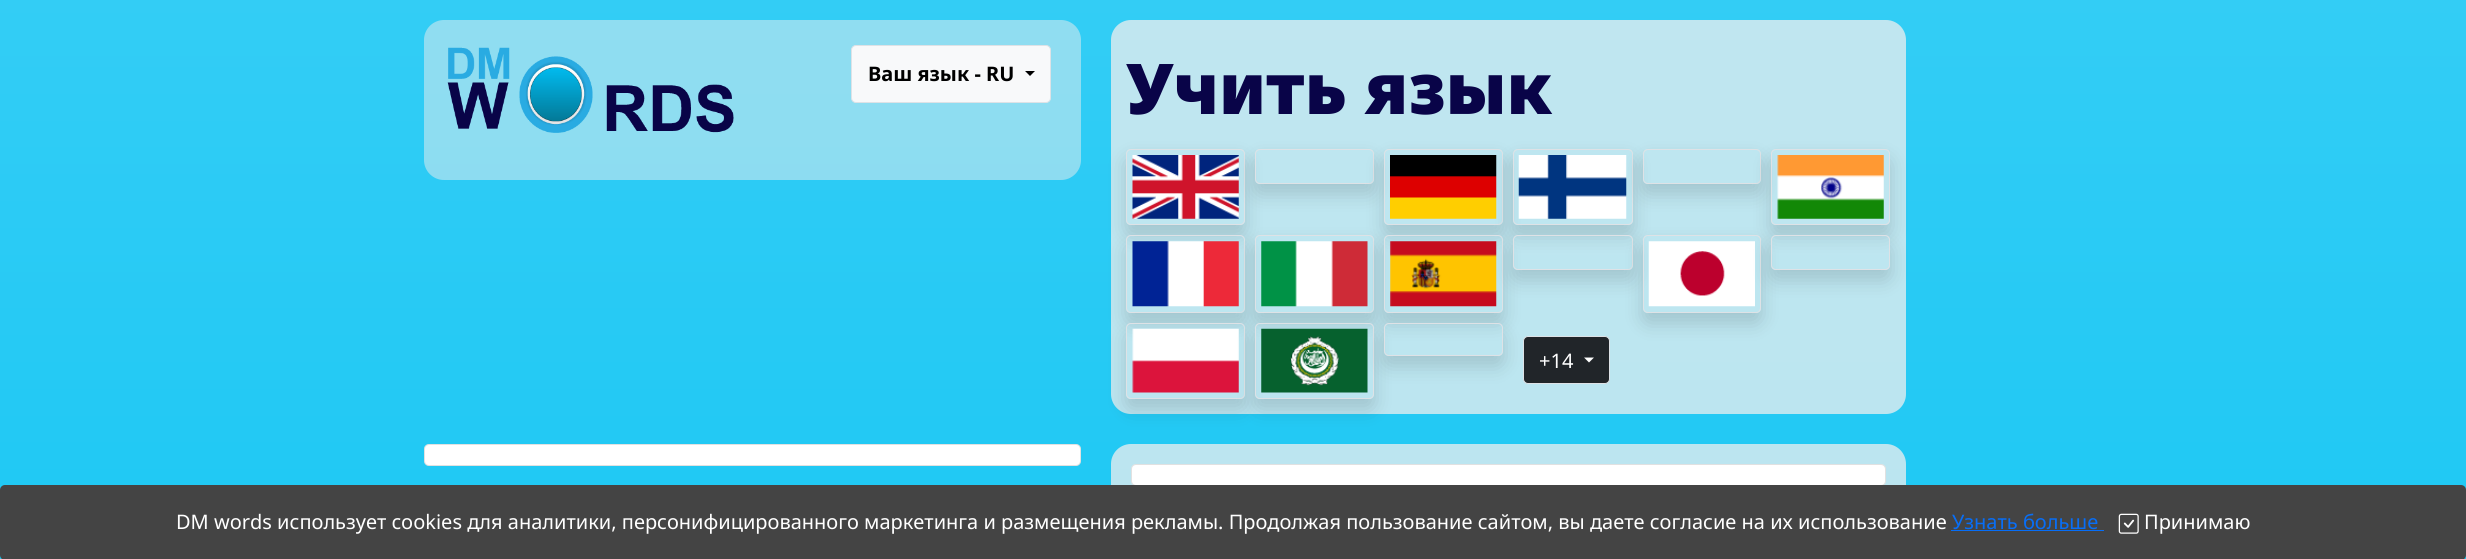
import math
import cairo

surface = cairo.ImageSurface(cairo.FORMAT_RGB24, 2466, 559)
cr = cairo.Context(surface)
options = cairo.FontOptions()
options.set_hint_metrics(cairo.HINT_METRICS_OFF)
options.set_hint_style(cairo.HINT_STYLE_NONE)
cr.set_font_options(options)
cr.set_miter_limit(4)


def rgb(code):
    cr.set_source_rgb(*(v / 255 for v in bytes.fromhex(code[-6:])))


def rrect(x, y, w, h, r):
    cr.new_sub_path()
    for i, (u, v) in enumerate([(x + w - r, y + h - r), (x + r, y + h - r), (x + r, y + r), (x + w - r, y + r)]):
        cr.arc(u, v, r, i * math.pi / 2, (i + 1) * math.pi / 2)
    cr.close_path()


def soft_shadow(x, y, w, h, r, blur, alpha):
    cr.push_group_with_content(cairo.CONTENT_ALPHA)
    cr.set_operator(cairo.OPERATOR_SOURCE)
    for i in range(15, -16, -2):
        e = blur * i / 6
        if min(w, h) + 2 * e > 0:
            cr.set_source_rgba(0, 0, 0, alpha * math.erfc((i - 1) / 8.5) / 2)
            rrect(x - e, y - e, w + 2 * e, h + 2 * e, max(0, min(r + e + blur * .6, min(w, h) / 2 + e)))
            cr.fill()
    cr.mask(cr.pop_group())


def image(path, x, y, w, h):
    cr.save()
    cr.set_source_surface(cairo.ImageSurface.create_from_png(path), x, y)
    cr.rectangle(x, y, w, h)
    cr.fill()
    cr.restore()


rgb("#ffffff")
cr.paint()
gradient = cairo.LinearGradient(1233, 0, 1233, 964)
gradient.add_color_stop_rgba(0, 0.2, 0.804, 0.961, 1)
gradient.add_color_stop_rgba(1, 0.059, 0.769, 0.953, 1)
cr.set_source(gradient)
cr.rectangle(0, 0, 2466, 559)
cr.fill()
cr.set_source_rgba(0.933, 0.933, 0.933, 0.5)
rrect(424, 20, 657, 160, 20)
cr.fill()
image("img/1.png", 447, 47, 287, 86)
rgb("#f8f9fa")
rrect(851.5, 45.5, 199, 57, 4.5)
cr.fill_preserve()
rgb("#dee2e6")
cr.set_line_width(1)
cr.stroke()
rgb("#000000")
cr.new_path()
cr.move_to(1025, 71)
cr.line_to(1035, 71)
cr.line_to(1030, 76)
cr.close_path()
cr.fill()
cr.set_source_rgba(0.933, 0.933, 0.933, 0.75)
rrect(1111, 20, 795, 394, 20)
cr.fill()
cr.save()
cr.set_fill_rule(cairo.FILL_RULE_EVEN_ODD)
cr.new_path()
cr.move_to(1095, 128)
cr.line_to(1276, 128)
cr.line_to(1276, 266)
cr.line_to(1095, 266)
cr.close_path()
cr.move_to(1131, 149)
cr.line_to(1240, 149)
cr.curve_to(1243, 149, 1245, 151, 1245, 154)
cr.line_to(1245, 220)
cr.curve_to(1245, 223, 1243, 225, 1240, 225)
cr.line_to(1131, 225)
cr.curve_to(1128, 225, 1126, 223, 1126, 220)
cr.line_to(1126, 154)
cr.curve_to(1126, 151, 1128, 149, 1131, 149)
cr.close_path()
cr.clip()
rgb("#000000")
soft_shadow(1126, 159, 119, 76, 5, 10, 0.15)
cr.restore()
rrect(1126.5, 149.5, 118, 75, 4.5)
rgb("#dee2e6")
cr.stroke()
image("img/2.png", 1132, 155, 107, 64)
cr.save()
cr.set_fill_rule(cairo.FILL_RULE_EVEN_ODD)
cr.new_path()
cr.move_to(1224, 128)
cr.line_to(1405, 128)
cr.line_to(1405, 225)
cr.line_to(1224, 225)
cr.close_path()
cr.move_to(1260, 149)
cr.line_to(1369, 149)
cr.curve_to(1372, 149, 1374, 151, 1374, 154)
cr.line_to(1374, 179)
cr.curve_to(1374, 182, 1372, 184, 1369, 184)
cr.line_to(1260, 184)
cr.curve_to(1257, 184, 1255, 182, 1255, 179)
cr.line_to(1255, 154)
cr.curve_to(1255, 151, 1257, 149, 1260, 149)
cr.close_path()
cr.clip()
rgb("#000000")
soft_shadow(1255, 159, 119, 35, 5, 10, 0.15)
cr.restore()
rrect(1255.5, 149.5, 118, 34, 4.5)
cr.stroke()
cr.save()
cr.set_fill_rule(cairo.FILL_RULE_EVEN_ODD)
cr.new_path()
cr.move_to(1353, 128)
cr.line_to(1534, 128)
cr.line_to(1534, 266)
cr.line_to(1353, 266)
cr.close_path()
cr.move_to(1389, 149)
cr.line_to(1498, 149)
cr.curve_to(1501, 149, 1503, 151, 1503, 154)
cr.line_to(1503, 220)
cr.curve_to(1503, 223, 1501, 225, 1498, 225)
cr.line_to(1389, 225)
cr.curve_to(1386, 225, 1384, 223, 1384, 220)
cr.line_to(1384, 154)
cr.curve_to(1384, 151, 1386, 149, 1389, 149)
cr.close_path()
cr.clip()
rgb("#000000")
soft_shadow(1384, 159, 119, 76, 5, 10, 0.15)
cr.restore()
rrect(1384.5, 149.5, 118, 75, 4.5)
cr.stroke()
image("img/3.png", 1390, 155, 107, 64)
cr.save()
cr.set_fill_rule(cairo.FILL_RULE_EVEN_ODD)
cr.new_path()
cr.move_to(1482, 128)
cr.line_to(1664, 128)
cr.line_to(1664, 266)
cr.line_to(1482, 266)
cr.close_path()
cr.move_to(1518, 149)
cr.line_to(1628, 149)
cr.curve_to(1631, 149, 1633, 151, 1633, 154)
cr.line_to(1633, 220)
cr.curve_to(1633, 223, 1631, 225, 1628, 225)
cr.line_to(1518, 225)
cr.curve_to(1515, 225, 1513, 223, 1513, 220)
cr.line_to(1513, 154)
cr.curve_to(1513, 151, 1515, 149, 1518, 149)
cr.close_path()
cr.clip()
rgb("#000000")
soft_shadow(1513, 159, 120, 76, 5, 10, 0.15)
cr.restore()
rrect(1513.5, 149.5, 119, 75, 4.5)
cr.stroke()
image("img/4.png", 1518, 155, 109, 64)
cr.save()
cr.set_fill_rule(cairo.FILL_RULE_EVEN_ODD)
cr.new_path()
cr.move_to(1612, 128)
cr.line_to(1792, 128)
cr.line_to(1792, 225)
cr.line_to(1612, 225)
cr.close_path()
cr.move_to(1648, 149)
cr.line_to(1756, 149)
cr.curve_to(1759, 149, 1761, 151, 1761, 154)
cr.line_to(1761, 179)
cr.curve_to(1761, 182, 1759, 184, 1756, 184)
cr.line_to(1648, 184)
cr.curve_to(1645, 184, 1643, 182, 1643, 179)
cr.line_to(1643, 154)
cr.curve_to(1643, 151, 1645, 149, 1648, 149)
cr.close_path()
cr.clip()
rgb("#000000")
soft_shadow(1643, 159, 118, 35, 5, 10, 0.15)
cr.restore()
rrect(1643.5, 149.5, 117, 34, 4.5)
cr.stroke()
cr.save()
cr.set_fill_rule(cairo.FILL_RULE_EVEN_ODD)
cr.new_path()
cr.move_to(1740, 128)
cr.line_to(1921, 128)
cr.line_to(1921, 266)
cr.line_to(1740, 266)
cr.close_path()
cr.move_to(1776, 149)
cr.line_to(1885, 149)
cr.curve_to(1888, 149, 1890, 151, 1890, 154)
cr.line_to(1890, 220)
cr.curve_to(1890, 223, 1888, 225, 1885, 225)
cr.line_to(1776, 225)
cr.curve_to(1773, 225, 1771, 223, 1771, 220)
cr.line_to(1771, 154)
cr.curve_to(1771, 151, 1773, 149, 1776, 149)
cr.close_path()
cr.clip()
rgb("#000000")
soft_shadow(1771, 159, 119, 76, 5, 10, 0.15)
cr.restore()
rrect(1771.5, 149.5, 118, 75, 4.5)
cr.stroke()
image("img/5.png", 1777, 155, 107, 64)
cr.save()
cr.set_fill_rule(cairo.FILL_RULE_EVEN_ODD)
cr.new_path()
cr.move_to(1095, 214)
cr.line_to(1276, 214)
cr.line_to(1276, 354)
cr.line_to(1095, 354)
cr.close_path()
cr.move_to(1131, 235)
cr.line_to(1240, 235)
cr.curve_to(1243, 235, 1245, 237, 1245, 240)
cr.line_to(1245, 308)
cr.curve_to(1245, 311, 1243, 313, 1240, 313)
cr.line_to(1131, 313)
cr.curve_to(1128, 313, 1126, 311, 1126, 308)
cr.line_to(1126, 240)
cr.curve_to(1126, 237, 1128, 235, 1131, 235)
cr.close_path()
cr.clip()
rgb("#000000")
soft_shadow(1126, 245, 119, 78, 5, 10, 0.15)
cr.restore()
rrect(1126.5, 235.5, 118, 77, 4.5)
cr.stroke()
image("img/6.png", 1132, 241, 107, 66)
cr.save()
cr.set_fill_rule(cairo.FILL_RULE_EVEN_ODD)
cr.new_path()
cr.move_to(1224, 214)
cr.line_to(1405, 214)
cr.line_to(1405, 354)
cr.line_to(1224, 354)
cr.close_path()
cr.move_to(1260, 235)
cr.line_to(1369, 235)
cr.curve_to(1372, 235, 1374, 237, 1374, 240)
cr.line_to(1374, 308)
cr.curve_to(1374, 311, 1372, 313, 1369, 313)
cr.line_to(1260, 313)
cr.curve_to(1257, 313, 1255, 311, 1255, 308)
cr.line_to(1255, 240)
cr.curve_to(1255, 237, 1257, 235, 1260, 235)
cr.close_path()
cr.clip()
rgb("#000000")
soft_shadow(1255, 245, 119, 78, 5, 10, 0.15)
cr.restore()
rrect(1255.5, 235.5, 118, 77, 4.5)
cr.stroke()
image("img/7.png", 1261, 241, 107, 66)
cr.save()
cr.set_fill_rule(cairo.FILL_RULE_EVEN_ODD)
cr.new_path()
cr.move_to(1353, 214)
cr.line_to(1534, 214)
cr.line_to(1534, 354)
cr.line_to(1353, 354)
cr.close_path()
cr.move_to(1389, 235)
cr.line_to(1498, 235)
cr.curve_to(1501, 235, 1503, 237, 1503, 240)
cr.line_to(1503, 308)
cr.curve_to(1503, 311, 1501, 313, 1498, 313)
cr.line_to(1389, 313)
cr.curve_to(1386, 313, 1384, 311, 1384, 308)
cr.line_to(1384, 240)
cr.curve_to(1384, 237, 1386, 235, 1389, 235)
cr.close_path()
cr.clip()
rgb("#000000")
soft_shadow(1384, 245, 119, 78, 5, 10, 0.15)
cr.restore()
rrect(1384.5, 235.5, 118, 77, 4.5)
cr.stroke()
image("img/8.png", 1390, 241, 107, 66)
cr.save()
cr.set_fill_rule(cairo.FILL_RULE_EVEN_ODD)
cr.new_path()
cr.move_to(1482, 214)
cr.line_to(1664, 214)
cr.line_to(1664, 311)
cr.line_to(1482, 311)
cr.close_path()
cr.move_to(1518, 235)
cr.line_to(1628, 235)
cr.curve_to(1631, 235, 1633, 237, 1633, 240)
cr.line_to(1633, 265)
cr.curve_to(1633, 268, 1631, 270, 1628, 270)
cr.line_to(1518, 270)
cr.curve_to(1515, 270, 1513, 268, 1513, 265)
cr.line_to(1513, 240)
cr.curve_to(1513, 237, 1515, 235, 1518, 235)
cr.close_path()
cr.clip()
rgb("#000000")
soft_shadow(1513, 245, 120, 35, 5, 10, 0.15)
cr.restore()
rrect(1513.5, 235.5, 119, 34, 4.5)
cr.stroke()
cr.save()
cr.set_fill_rule(cairo.FILL_RULE_EVEN_ODD)
cr.new_path()
cr.move_to(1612, 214)
cr.line_to(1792, 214)
cr.line_to(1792, 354)
cr.line_to(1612, 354)
cr.close_path()
cr.move_to(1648, 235)
cr.line_to(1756, 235)
cr.curve_to(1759, 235, 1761, 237, 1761, 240)
cr.line_to(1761, 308)
cr.curve_to(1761, 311, 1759, 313, 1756, 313)
cr.line_to(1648, 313)
cr.curve_to(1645, 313, 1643, 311, 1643, 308)
cr.line_to(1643, 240)
cr.curve_to(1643, 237, 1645, 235, 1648, 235)
cr.close_path()
cr.clip()
rgb("#000000")
soft_shadow(1643, 245, 118, 78, 5, 10, 0.15)
cr.restore()
rrect(1643.5, 235.5, 117, 77, 4.5)
cr.stroke()
image("img/9.png", 1648, 241, 107, 66)
cr.save()
cr.set_fill_rule(cairo.FILL_RULE_EVEN_ODD)
cr.new_path()
cr.move_to(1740, 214)
cr.line_to(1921, 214)
cr.line_to(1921, 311)
cr.line_to(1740, 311)
cr.close_path()
cr.move_to(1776, 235)
cr.line_to(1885, 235)
cr.curve_to(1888, 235, 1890, 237, 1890, 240)
cr.line_to(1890, 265)
cr.curve_to(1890, 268, 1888, 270, 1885, 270)
cr.line_to(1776, 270)
cr.curve_to(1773, 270, 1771, 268, 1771, 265)
cr.line_to(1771, 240)
cr.curve_to(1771, 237, 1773, 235, 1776, 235)
cr.close_path()
cr.clip()
rgb("#000000")
soft_shadow(1771, 245, 119, 35, 5, 10, 0.15)
cr.restore()
rrect(1771.5, 235.5, 118, 34, 4.5)
cr.stroke()
cr.save()
cr.set_fill_rule(cairo.FILL_RULE_EVEN_ODD)
cr.new_path()
cr.move_to(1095, 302)
cr.line_to(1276, 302)
cr.line_to(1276, 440)
cr.line_to(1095, 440)
cr.close_path()
cr.move_to(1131, 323)
cr.line_to(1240, 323)
cr.curve_to(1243, 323, 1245, 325, 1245, 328)
cr.line_to(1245, 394)
cr.curve_to(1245, 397, 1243, 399, 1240, 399)
cr.line_to(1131, 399)
cr.curve_to(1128, 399, 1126, 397, 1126, 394)
cr.line_to(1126, 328)
cr.curve_to(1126, 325, 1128, 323, 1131, 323)
cr.close_path()
cr.clip()
rgb("#000000")
soft_shadow(1126, 333, 119, 76, 5, 10, 0.15)
cr.restore()
rrect(1126.5, 323.5, 118, 75, 4.5)
cr.stroke()
image("img/10.png", 1132, 328, 107, 65)
cr.save()
cr.set_fill_rule(cairo.FILL_RULE_EVEN_ODD)
cr.new_path()
cr.move_to(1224, 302)
cr.line_to(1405, 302)
cr.line_to(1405, 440)
cr.line_to(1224, 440)
cr.close_path()
cr.move_to(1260, 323)
cr.line_to(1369, 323)
cr.curve_to(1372, 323, 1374, 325, 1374, 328)
cr.line_to(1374, 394)
cr.curve_to(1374, 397, 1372, 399, 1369, 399)
cr.line_to(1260, 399)
cr.curve_to(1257, 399, 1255, 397, 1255, 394)
cr.line_to(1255, 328)
cr.curve_to(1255, 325, 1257, 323, 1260, 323)
cr.close_path()
cr.clip()
rgb("#000000")
soft_shadow(1255, 333, 119, 76, 5, 10, 0.15)
cr.restore()
rrect(1255.5, 323.5, 118, 75, 4.5)
cr.stroke()
image("img/11.png", 1261, 328, 107, 65)
cr.save()
cr.set_fill_rule(cairo.FILL_RULE_EVEN_ODD)
cr.new_path()
cr.move_to(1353, 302)
cr.line_to(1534, 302)
cr.line_to(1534, 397)
cr.line_to(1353, 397)
cr.close_path()
cr.move_to(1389, 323)
cr.line_to(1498, 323)
cr.curve_to(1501, 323, 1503, 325, 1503, 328)
cr.line_to(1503, 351)
cr.curve_to(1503, 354, 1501, 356, 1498, 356)
cr.line_to(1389, 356)
cr.curve_to(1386, 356, 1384, 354, 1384, 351)
cr.line_to(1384, 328)
cr.curve_to(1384, 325, 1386, 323, 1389, 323)
cr.close_path()
cr.clip()
rgb("#000000")
soft_shadow(1384, 333, 119, 33, 5, 10, 0.15)
cr.restore()
rrect(1384.5, 323.5, 118, 32, 4.5)
cr.stroke()
rgb("#212529")
rrect(1523.5, 336.5, 86, 47, 4.5)
cr.fill_preserve()
rgb("#dee2e6")
cr.stroke()
rgb("#ffffff")
cr.new_path()
cr.move_to(1584, 357.5)
cr.line_to(1594, 357.5)
cr.line_to(1589, 362.5)
cr.close_path()
cr.fill()
rrect(424, 444, 657, 22, 5)
cr.fill()
rrect(424.5, 444.5, 656, 21, 4.5)
cr.set_source_rgba(0, 0, 0, 0.12)
cr.stroke()
cr.set_source_rgba(0.933, 0.933, 0.933, 0.75)
rrect(1111, 444, 795, 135, 20)
cr.fill()
rgb("#ffffff")
rrect(1131, 464, 755, 22, 5)
cr.fill()
rrect(1131.5, 464.5, 754, 21, 4.5)
cr.set_source_rgba(0, 0, 0, 0.12)
cr.stroke()
rgb("#444444")
rrect(0, 485, 2466, 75, 5)
cr.fill()
rgb("#076ef7")
cr.rectangle(1951, 530, 153, 1)
cr.fill()
image("img/12.png", 2118, 513, 21, 21)
cr.select_font_face("Noto Sans", cairo.FONT_SLANT_NORMAL, cairo.FONT_WEIGHT_BOLD)
cr.set_font_size(20)
rgb("#000000")
cr.move_to(868, 81)
cr.show_text("Ваш язык - RU")
cr.select_font_face("Noto Sans Black")
cr.set_font_size(70)
rgb("#090448")
cr.move_to(1126, 114)
cr.show_text("Учить язык")
cr.select_font_face("Noto Sans")
cr.set_font_size(20)
rgb("#ffffff")
cr.move_to(1539, 368)
cr.show_text("+14")
cr.move_to(176, 529)
cr.show_text("DM words использует cookies для аналитики, персонифицированного маркетинга и размещения рекламы. Продолжая пользование сайтом, вы даете согласие на их использование")
rgb("#076ef7")
cr.move_to(1952, 529)
cr.show_text("Узнать больше")
rgb("#ffffff")
cr.move_to(2144, 529)
cr.show_text("Принимаю")
surface.write_to_png("page.png")
